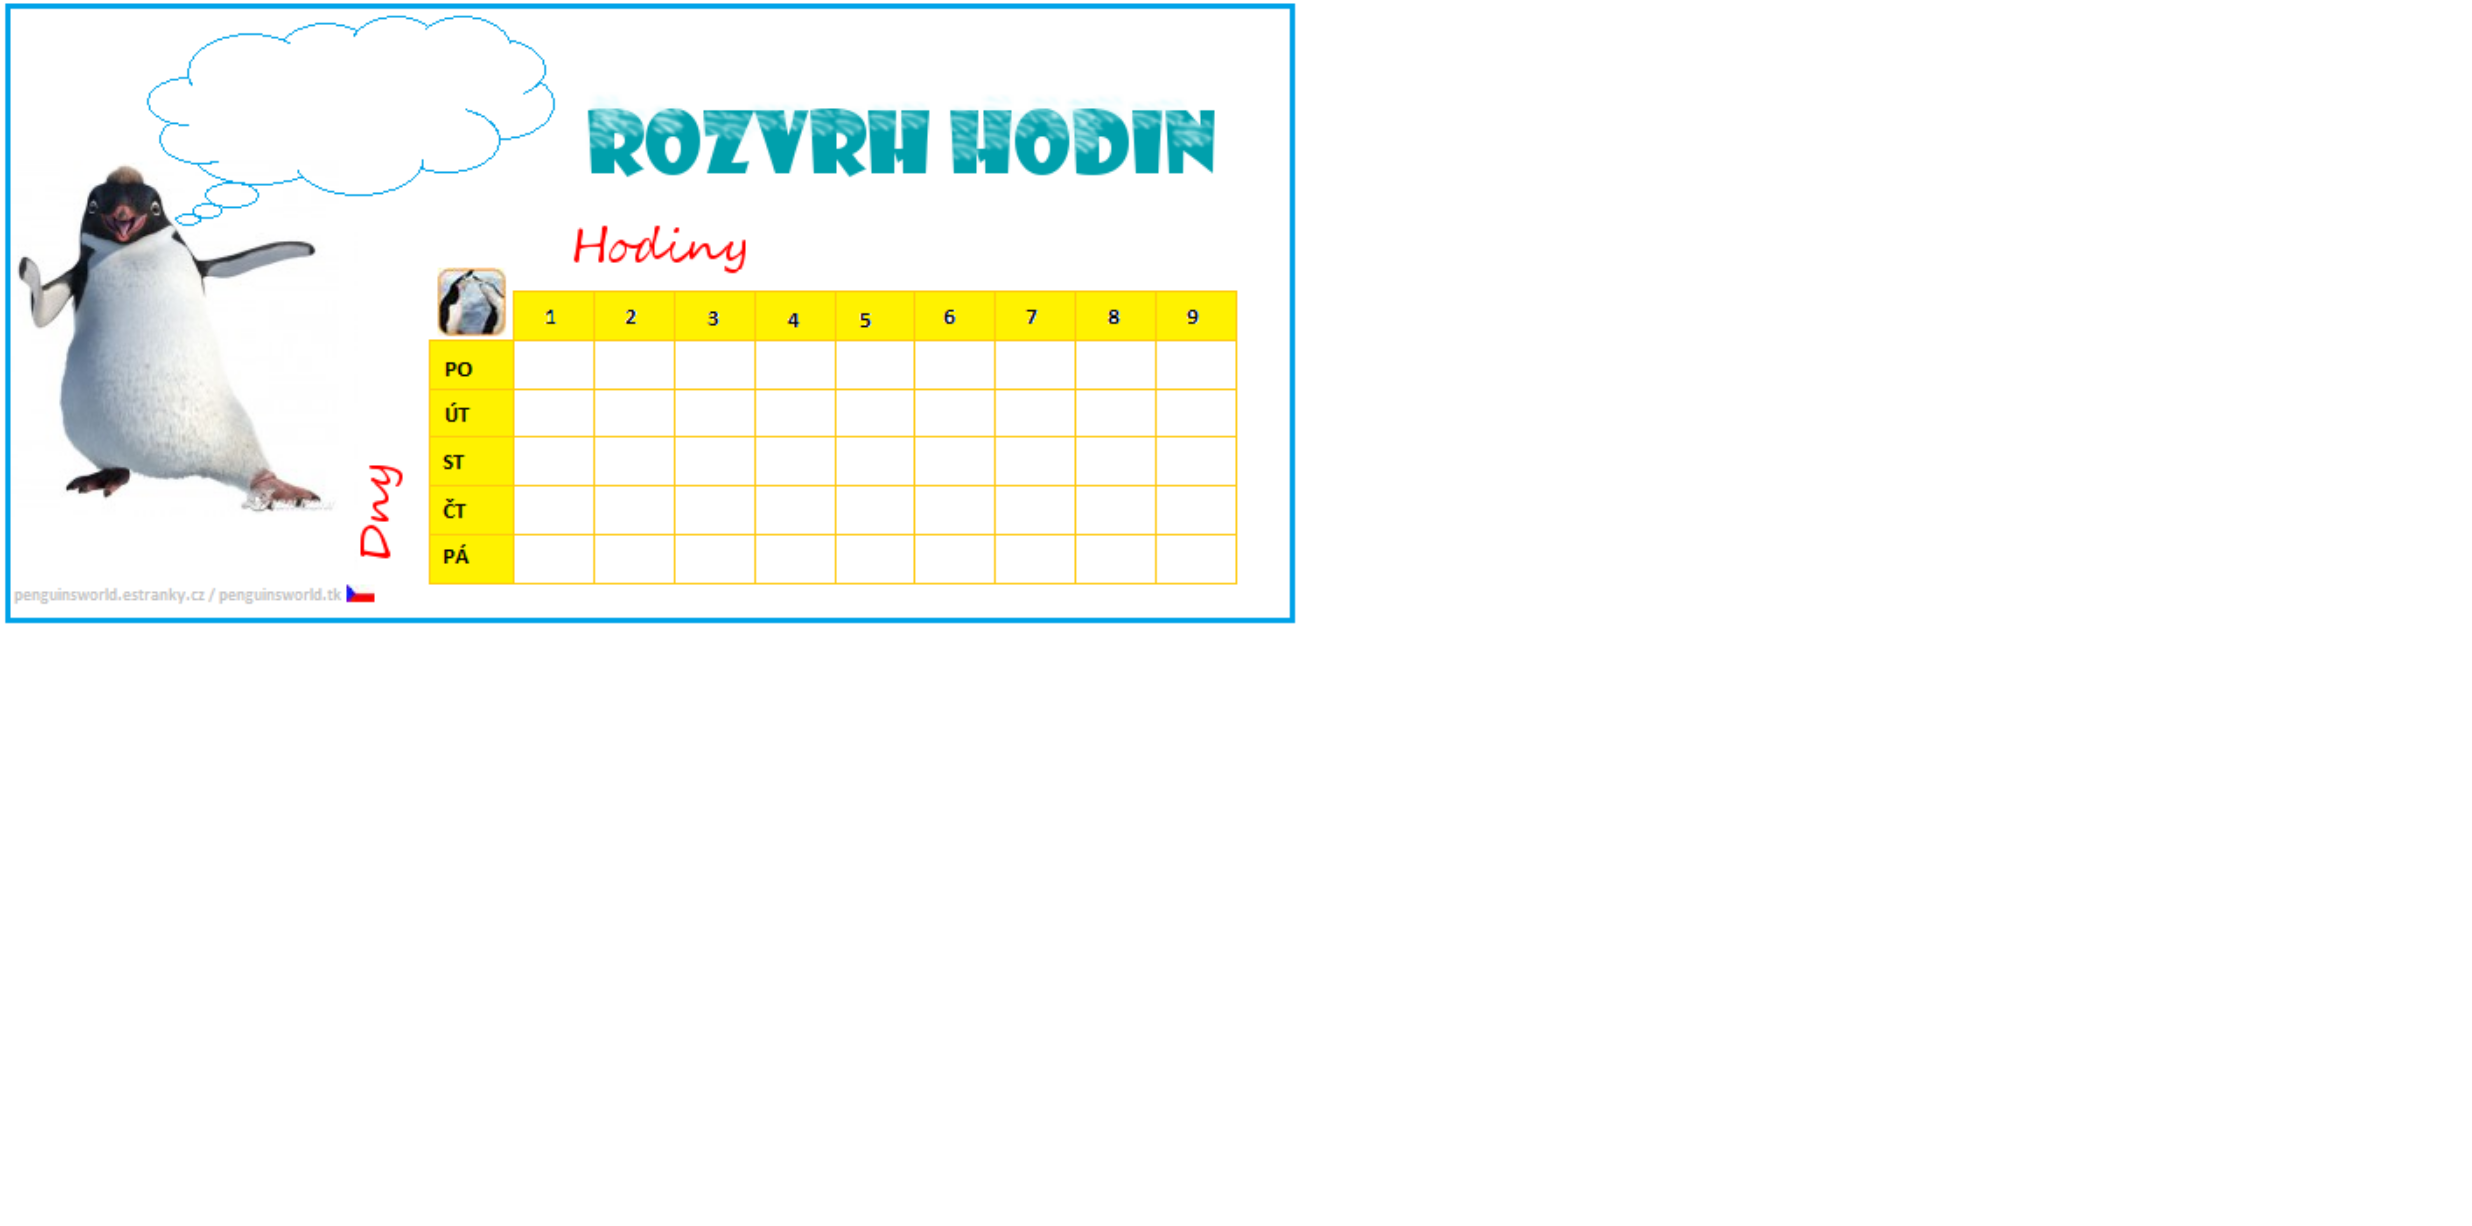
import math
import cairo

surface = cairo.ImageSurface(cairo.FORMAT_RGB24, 2472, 1226)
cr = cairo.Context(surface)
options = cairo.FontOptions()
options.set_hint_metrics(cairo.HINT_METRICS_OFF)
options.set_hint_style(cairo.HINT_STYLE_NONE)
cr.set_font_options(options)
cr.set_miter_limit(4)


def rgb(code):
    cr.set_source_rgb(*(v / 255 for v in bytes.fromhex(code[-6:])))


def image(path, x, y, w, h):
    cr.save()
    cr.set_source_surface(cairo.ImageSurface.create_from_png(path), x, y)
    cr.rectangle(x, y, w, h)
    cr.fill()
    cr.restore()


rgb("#ffffff")
cr.paint()
image("img/1.png", 4, 3, 1292, 621)
surface.write_to_png("page.png")
